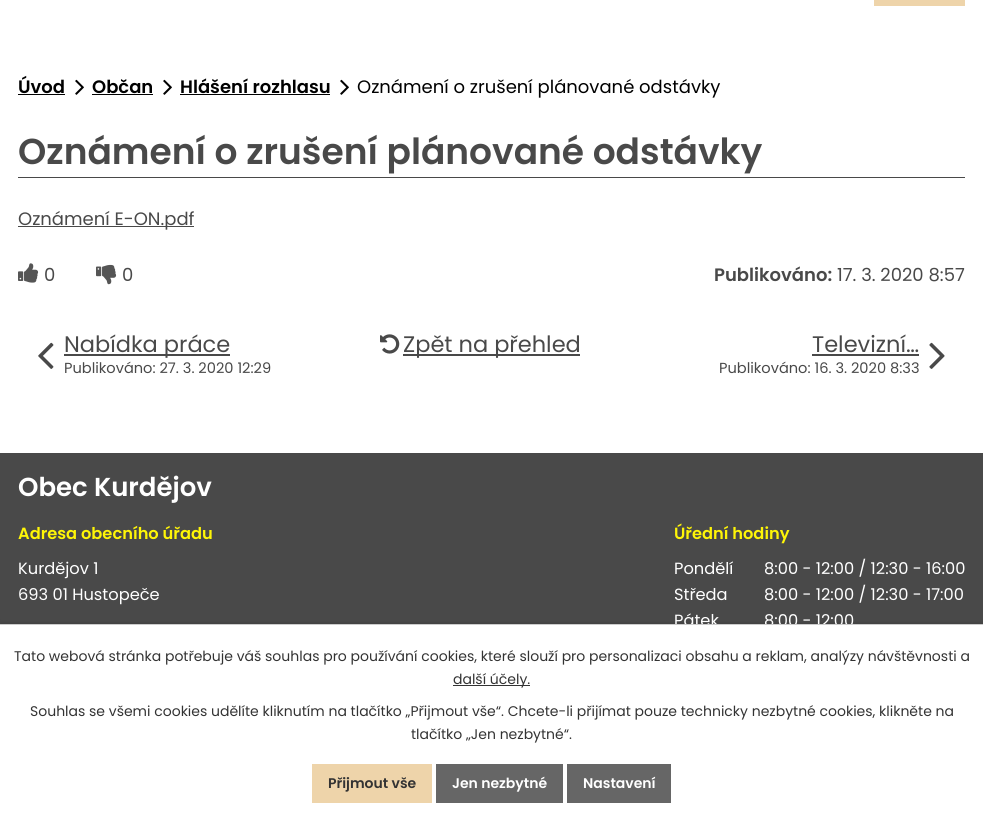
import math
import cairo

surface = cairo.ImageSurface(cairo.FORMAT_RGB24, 983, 822)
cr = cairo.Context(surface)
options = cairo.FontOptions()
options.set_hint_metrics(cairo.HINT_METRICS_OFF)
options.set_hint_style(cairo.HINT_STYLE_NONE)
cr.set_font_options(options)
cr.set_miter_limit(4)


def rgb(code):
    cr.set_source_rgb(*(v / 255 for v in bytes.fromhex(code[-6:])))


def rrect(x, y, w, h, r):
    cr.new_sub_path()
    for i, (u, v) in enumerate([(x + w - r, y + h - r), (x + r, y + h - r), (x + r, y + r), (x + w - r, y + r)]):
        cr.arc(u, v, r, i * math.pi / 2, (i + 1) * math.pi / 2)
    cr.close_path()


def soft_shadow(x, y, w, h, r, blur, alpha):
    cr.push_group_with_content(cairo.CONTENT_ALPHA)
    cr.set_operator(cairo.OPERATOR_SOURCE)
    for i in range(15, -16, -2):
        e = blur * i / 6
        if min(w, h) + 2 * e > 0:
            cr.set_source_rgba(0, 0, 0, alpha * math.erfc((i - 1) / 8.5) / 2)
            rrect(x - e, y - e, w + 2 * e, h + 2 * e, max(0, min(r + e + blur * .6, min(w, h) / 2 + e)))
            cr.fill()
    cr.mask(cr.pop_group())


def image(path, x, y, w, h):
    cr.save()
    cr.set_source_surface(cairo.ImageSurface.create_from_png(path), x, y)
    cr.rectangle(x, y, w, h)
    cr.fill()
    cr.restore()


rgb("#ffffff")
cr.paint()
rgb("#eed4aa")
cr.rectangle(874, 0, 91, 6)
cr.fill()
rgb("#000000")
cr.rectangle(18, 94, 47, 1)
cr.fill()
image("img/1.png", 75, 79, 9, 16)
cr.rectangle(92, 94, 61, 1)
cr.fill()
image("img/1.png", 163, 79, 9, 16)
cr.rectangle(180, 94, 150, 1)
cr.fill()
image("img/1.png", 340, 79, 9, 16)
rgb("#494949")
cr.rectangle(18, 177, 947, 1)
cr.fill()
cr.rectangle(18, 226, 176, 1)
cr.fill()
image("img/2.png", 18, 263, 21, 20)
image("img/3.png", 96, 264, 21, 21)
image("img/4.png", 38, 342, 16, 27)
cr.rectangle(64, 354, 166, 2)
cr.fill()
image("img/5.png", 380, 334, 20, 20)
cr.rectangle(403, 354, 177, 2)
cr.fill()
cr.rectangle(812, 354, 107, 2)
cr.fill()
image("img/6.png", 929, 342, 16, 27)
cr.rectangle(0, 453, 983, 171)
cr.fill()
rgb("#000000")
soft_shadow(0, 624, 983, 198, 0, 2.5, 0.2)
for x, y, w, h, color in [
    (0, 625, 983, 197, "#ffffff"),
    (453, 685, 77, 1, "#333333"),
    (312, 764, 120, 39, "#eed4aa"),
    (436, 764, 127, 39, "#666666"),
    (567, 764, 104, 39, "#666666"),
]:
    rgb(color)
    cr.rectangle(x, y, w, h)
    cr.fill()
cr.select_font_face("Poppins SemiBold")
cr.set_font_size(18)
rgb("#000000")
for x, y, s in [
    (18, 93, "Úvod"),
    (92, 93, "Občan"),
    (180, 93, "Hlášení rozhlasu"),
]:
    cr.move_to(x, y)
    cr.show_text(s)
cr.select_font_face("Poppins")
cr.move_to(357, 93)
cr.show_text("Oznámení o zrušení plánované odstávky")
cr.select_font_face("Poppins SemiBold")
cr.set_font_size(36)
rgb("#494949")
cr.move_to(18, 164)
cr.show_text("Oznámení o zrušení plánované odstávky")
cr.select_font_face("Poppins")
cr.set_font_size(18)
for x, y, s in [
    (18, 225, "Oznámení E-ON.pdf"),
    (44, 281, "0"),
    (122, 281, "0"),
]:
    cr.move_to(x, y)
    cr.show_text(s)
cr.select_font_face("Poppins SemiBold")
cr.move_to(714, 281)
cr.show_text("Publikováno:")
cr.select_font_face("Poppins")
cr.move_to(837, 281)
cr.show_text("17. 3. 2020 8:57")
cr.set_font_size(22.5)
cr.move_to(64, 352)
cr.show_text("Nabídka práce")
cr.set_font_size(14.6)
cr.move_to(64, 373)
cr.show_text("Publikováno: 27. 3. 2020 12:29")
cr.set_font_size(22.5)
cr.move_to(403, 352)
cr.show_text("Zpět na přehled")
cr.move_to(812, 352)
cr.show_text("Televizní…")
cr.set_font_size(14.6)
cr.move_to(719, 373)
cr.show_text("Publikováno: 16. 3. 2020 8:33")
cr.select_font_face("Poppins SemiBold")
cr.set_font_size(26)
rgb("#ffffff")
cr.move_to(18, 496)
cr.show_text("Obec Kurdějov")
cr.set_font_size(16.25)
rgb("#fef507")
cr.move_to(18, 539)
cr.show_text("Adresa obecního úřadu")
cr.select_font_face("Poppins")
rgb("#ffffff")
cr.move_to(18, 574)
cr.show_text("Kurdějov 1")
cr.move_to(18, 600)
cr.show_text("693 01 Hustopeče")
cr.select_font_face("Poppins SemiBold")
rgb("#fef507")
cr.move_to(674, 539)
cr.show_text("Úřední hodiny")
cr.select_font_face("Poppins")
rgb("#ffffff")
for x, y, s in [
    (674, 574, "Pondělí"),
    (764, 574, "8:00 - 12:00 / 12:30 - 16:00"),
    (674, 600, "Středa"),
    (764, 600, "8:00 - 12:00 / 12:30 - 17:00"),
    (674, 626, "Pátek"),
    (764, 626, "8:00 - 12:00"),
]:
    cr.move_to(x, y)
    cr.show_text(s)
rgb("#cccccc")
cr.rectangle(0, 624, 983, 1)
cr.fill()
cr.set_font_size(14)
rgb("#333333")
for x, y, s in [
    (14, 661, "Tato webová stránka potřebuje váš souhlas pro používání cookies, které slouží pro personalizaci obsahu a reklam, analýzy návštěvnosti a"),
    (453, 684, "další účely."),
    (30, 716, "Souhlas se všemi cookies udělíte kliknutím na tlačítko „Přijmout vše“. Chcete-li přijímat pouze technicky nezbytné cookies, klikněte na"),
    (411, 739, "tlačítko „Jen nezbytné“."),
]:
    cr.move_to(x, y)
    cr.show_text(s)
cr.select_font_face("Poppins SemiBold")
cr.move_to(328, 788)
cr.show_text("Přijmout vše")
rgb("#ffffff")
cr.move_to(452, 788)
cr.show_text("Jen nezbytné")
cr.move_to(583, 788)
cr.show_text("Nastavení")
surface.write_to_png("page.png")
